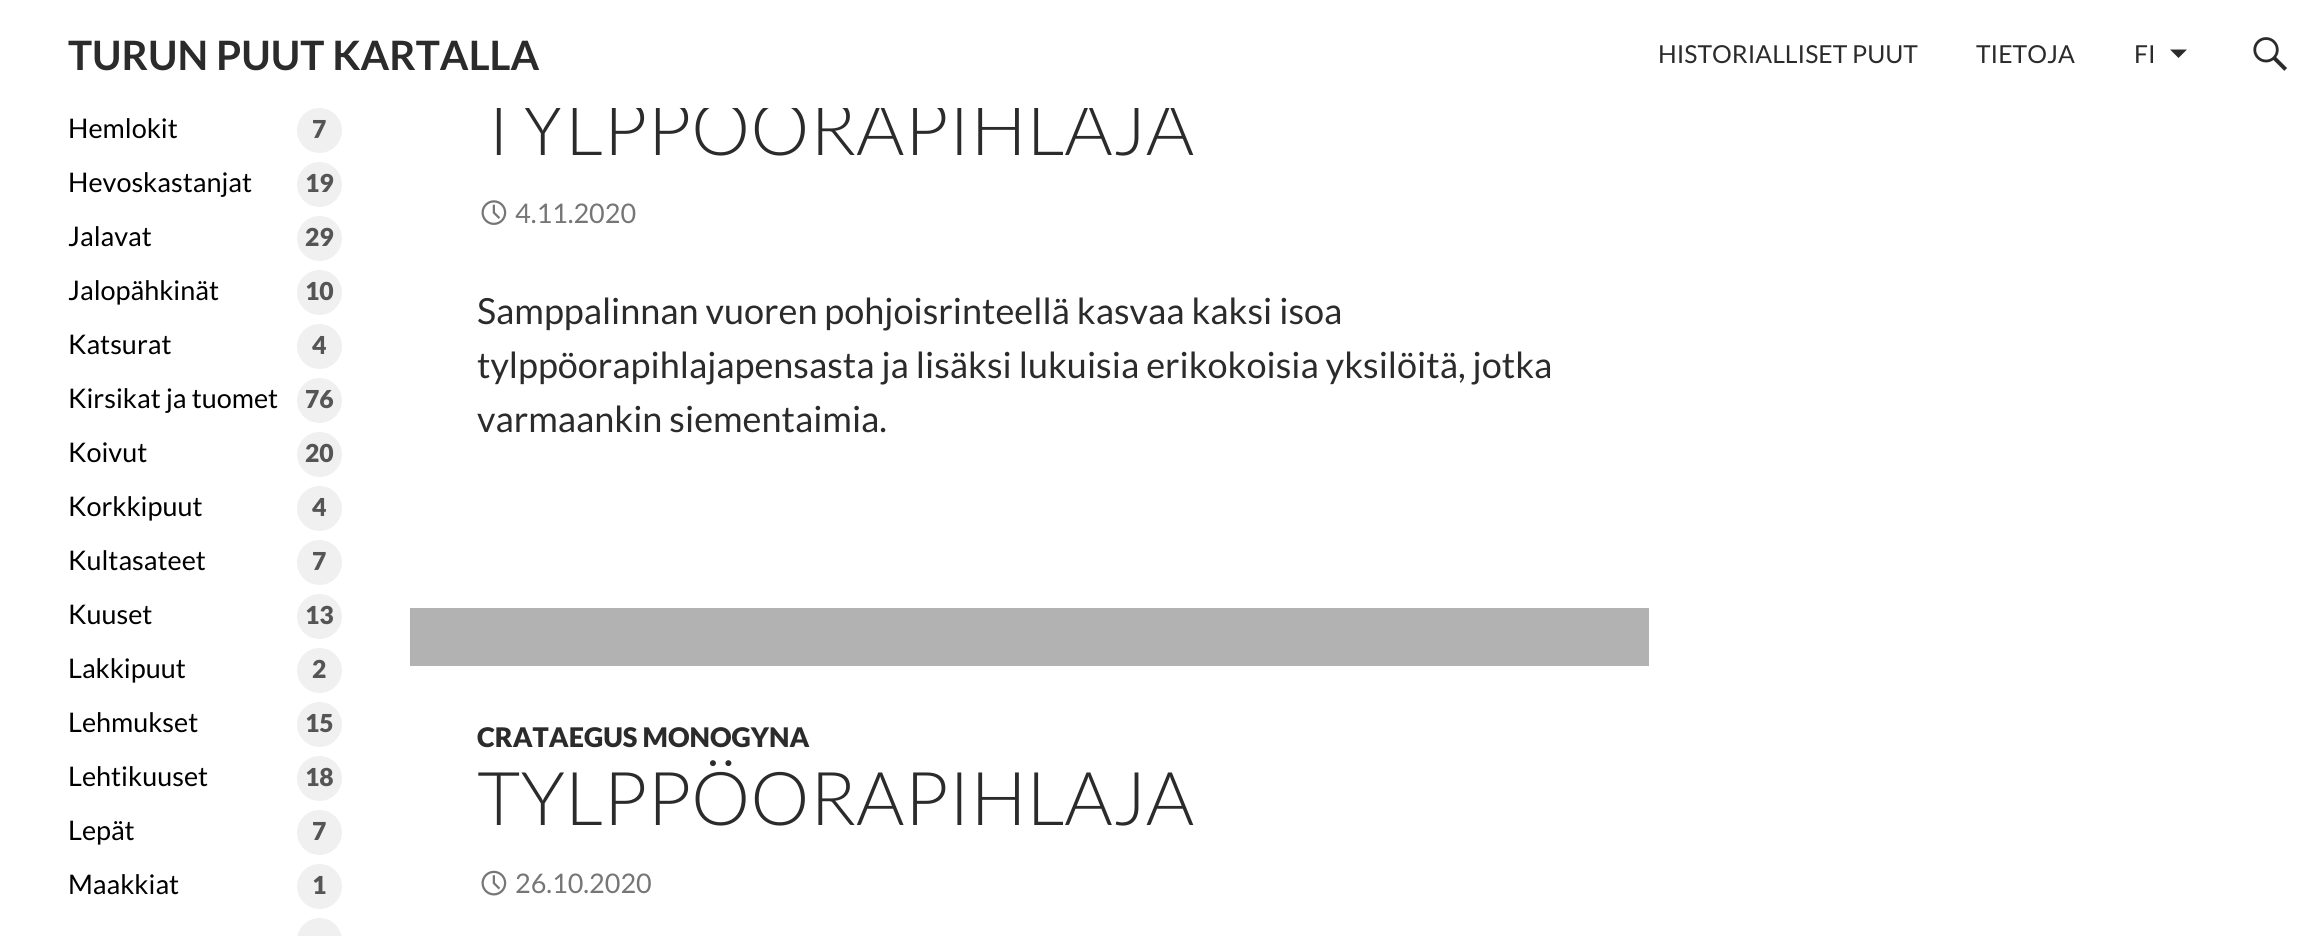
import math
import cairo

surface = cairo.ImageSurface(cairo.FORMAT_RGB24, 2324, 936)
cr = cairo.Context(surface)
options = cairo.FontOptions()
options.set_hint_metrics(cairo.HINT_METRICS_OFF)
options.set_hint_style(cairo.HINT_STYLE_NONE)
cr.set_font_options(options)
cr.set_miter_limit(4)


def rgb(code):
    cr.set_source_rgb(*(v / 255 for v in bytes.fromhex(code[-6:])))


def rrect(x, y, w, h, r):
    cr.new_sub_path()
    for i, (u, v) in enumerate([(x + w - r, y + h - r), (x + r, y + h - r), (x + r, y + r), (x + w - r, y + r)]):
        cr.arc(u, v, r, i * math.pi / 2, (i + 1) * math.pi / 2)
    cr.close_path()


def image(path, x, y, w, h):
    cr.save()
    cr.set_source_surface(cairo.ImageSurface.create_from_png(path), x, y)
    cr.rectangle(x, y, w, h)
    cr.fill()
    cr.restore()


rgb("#ffffff")
cr.paint()
rgb("#2b2b2b")
cr.new_path()
cr.move_to(2170, 49.5)
cr.line_to(2178.5, 58)
cr.line_to(2187, 49.5)
cr.close_path()
cr.fill()
image("img/1.png", 2253, 37, 34, 34)
rgb("#f0f0f0")
cr.arc(319.5, 130.5, 22.5, 0, 2 * math.pi)
cr.fill()
cr.arc(319.5, 184.5, 22.5, 0, 2 * math.pi)
cr.fill()
cr.arc(319.5, 238.5, 22.5, 0, 2 * math.pi)
cr.fill()
cr.arc(319.5, 292.5, 22.5, 0, 2 * math.pi)
cr.fill()
cr.arc(319.5, 346.5, 22.5, 0, 2 * math.pi)
cr.fill()
cr.arc(319.5, 400.5, 22.5, 0, 2 * math.pi)
cr.fill()
cr.arc(319.5, 454.5, 22.5, 0, 2 * math.pi)
cr.fill()
cr.arc(319.5, 508.5, 22.5, 0, 2 * math.pi)
cr.fill()
cr.arc(319.5, 562.5, 22.5, 0, 2 * math.pi)
cr.fill()
cr.arc(319.5, 616.5, 22.5, 0, 2 * math.pi)
cr.fill()
cr.arc(319.5, 670.5, 22.5, 0, 2 * math.pi)
cr.fill()
cr.arc(319.5, 724.5, 22.5, 0, 2 * math.pi)
cr.fill()
cr.arc(319.5, 778.5, 22.5, 0, 2 * math.pi)
cr.fill()
cr.arc(319.5, 832.5, 22.5, 0, 2 * math.pi)
cr.fill()
cr.arc(319.5, 886.5, 22.5, 0, 2 * math.pi)
cr.fill()
rrect(297, 918, 45, 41, 22.5)
cr.fill()
image("img/2.png", 481, 200, 26, 25)
rgb("#b2b2b2")
cr.rectangle(410, 608, 1239, 58)
cr.fill()
image("img/3.png", 481, 870, 26, 26)
cr.select_font_face("Lato", cairo.FONT_SLANT_NORMAL, cairo.FONT_WEIGHT_BOLD)
cr.set_font_size(40.5)
rgb("#2b2b2b")
cr.move_to(68, 70)
cr.show_text("TURUN PUUT KARTALLA")
cr.select_font_face("Lato")
cr.set_font_size(24.75)
for x, y, s in [
    (1658, 63, "HISTORIALLISET PUUT"),
    (1976, 63, "TIETOJA"),
    (2134, 63, "FI"),
]:
    cr.move_to(x, y)
    cr.show_text(s)
cr.set_font_size(27)
rgb("#000000")
cr.move_to(68, 138)
cr.show_text("Hemlokit")
cr.select_font_face("Lato Black")
cr.set_font_size(24.75)
rgb("#555555")
cr.move_to(312, 138)
cr.show_text("7")
cr.select_font_face("Lato")
cr.set_font_size(27)
rgb("#000000")
cr.move_to(68, 192)
cr.show_text("Hevoskastanjat")
cr.select_font_face("Lato Black")
cr.set_font_size(24.75)
rgb("#555555")
cr.move_to(305, 192)
cr.show_text("19")
cr.select_font_face("Lato")
cr.set_font_size(27)
rgb("#000000")
cr.move_to(68, 246)
cr.show_text("Jalavat")
cr.select_font_face("Lato Black")
cr.set_font_size(24.75)
rgb("#555555")
cr.move_to(305, 246)
cr.show_text("29")
cr.select_font_face("Lato")
cr.set_font_size(27)
rgb("#000000")
cr.move_to(68, 300)
cr.show_text("Jalopähkinät")
cr.select_font_face("Lato Black")
cr.set_font_size(24.75)
rgb("#555555")
cr.move_to(305, 300)
cr.show_text("10")
cr.select_font_face("Lato")
cr.set_font_size(27)
rgb("#000000")
cr.move_to(68, 354)
cr.show_text("Katsurat")
cr.select_font_face("Lato Black")
cr.set_font_size(24.75)
rgb("#555555")
cr.move_to(312, 354)
cr.show_text("4")
cr.select_font_face("Lato")
cr.set_font_size(27)
rgb("#000000")
cr.move_to(68, 408)
cr.show_text("Kirsikat ja tuomet")
cr.select_font_face("Lato Black")
cr.set_font_size(24.75)
rgb("#555555")
cr.move_to(305, 408)
cr.show_text("76")
cr.select_font_face("Lato")
cr.set_font_size(27)
rgb("#000000")
cr.move_to(68, 462)
cr.show_text("Koivut")
cr.select_font_face("Lato Black")
cr.set_font_size(24.75)
rgb("#555555")
cr.move_to(305, 462)
cr.show_text("20")
cr.select_font_face("Lato")
cr.set_font_size(27)
rgb("#000000")
cr.move_to(68, 516)
cr.show_text("Korkkipuut")
cr.select_font_face("Lato Black")
cr.set_font_size(24.75)
rgb("#555555")
cr.move_to(312, 516)
cr.show_text("4")
cr.select_font_face("Lato")
cr.set_font_size(27)
rgb("#000000")
cr.move_to(68, 570)
cr.show_text("Kultasateet")
cr.select_font_face("Lato Black")
cr.set_font_size(24.75)
rgb("#555555")
cr.move_to(312, 570)
cr.show_text("7")
cr.select_font_face("Lato")
cr.set_font_size(27)
rgb("#000000")
cr.move_to(68, 624)
cr.show_text("Kuuset")
cr.select_font_face("Lato Black")
cr.set_font_size(24.75)
rgb("#555555")
cr.move_to(305, 624)
cr.show_text("13")
cr.select_font_face("Lato")
cr.set_font_size(27)
rgb("#000000")
cr.move_to(68, 678)
cr.show_text("Lakkipuut")
cr.select_font_face("Lato Black")
cr.set_font_size(24.75)
rgb("#555555")
cr.move_to(312, 678)
cr.show_text("2")
cr.select_font_face("Lato")
cr.set_font_size(27)
rgb("#000000")
cr.move_to(68, 732)
cr.show_text("Lehmukset")
cr.select_font_face("Lato Black")
cr.set_font_size(24.75)
rgb("#555555")
cr.move_to(305, 732)
cr.show_text("15")
cr.select_font_face("Lato")
cr.set_font_size(27)
rgb("#000000")
cr.move_to(68, 786)
cr.show_text("Lehtikuuset")
cr.select_font_face("Lato Black")
cr.set_font_size(24.75)
rgb("#555555")
cr.move_to(305, 786)
cr.show_text("18")
cr.select_font_face("Lato")
cr.set_font_size(27)
rgb("#000000")
cr.move_to(68, 840)
cr.show_text("Lepät")
cr.select_font_face("Lato Black")
cr.set_font_size(24.75)
rgb("#555555")
cr.move_to(312, 840)
cr.show_text("7")
cr.select_font_face("Lato")
cr.set_font_size(27)
rgb("#000000")
cr.move_to(68, 894)
cr.show_text("Maakkiat")
cr.select_font_face("Lato Black")
cr.set_font_size(24.75)
rgb("#555555")
cr.move_to(312, 894)
cr.show_text("1")
cr.select_font_face("Lato Light")
cr.set_font_size(74.25)
rgb("#2b2b2b")
cr.move_to(477, 155)
cr.show_text("TYLPPÖORAPIHLAJA")
rgb("#ffffff")
cr.rectangle(478, 90, 697, 18)
cr.fill()
cr.select_font_face("Lato")
cr.set_font_size(27)
rgb("#767676")
cr.move_to(515, 223)
cr.show_text("4.11.2020")
cr.set_font_size(36)
rgb("#2b2b2b")
for x, y, s in [
    (477, 324, "Samppalinnan vuoren pohjoisrinteellä kasvaa kaksi isoa"),
    (477, 378, "tylppöorapihlajapensasta ja lisäksi lukuisia erikokoisia yksilöitä, jotka"),
    (477, 432, "varmaankin siementaimia."),
]:
    cr.move_to(x, y)
    cr.show_text(s)
cr.select_font_face("Lato Black")
cr.set_font_size(27)
cr.move_to(477, 747)
cr.show_text("CRATAEGUS MONOGYNA")
cr.select_font_face("Lato Light")
cr.set_font_size(74.25)
cr.move_to(477, 825)
cr.show_text("TYLPPÖORAPIHLAJA")
cr.select_font_face("Lato")
cr.set_font_size(27)
rgb("#767676")
cr.move_to(515, 893)
cr.show_text("26.10.2020")
surface.write_to_png("page.png")
